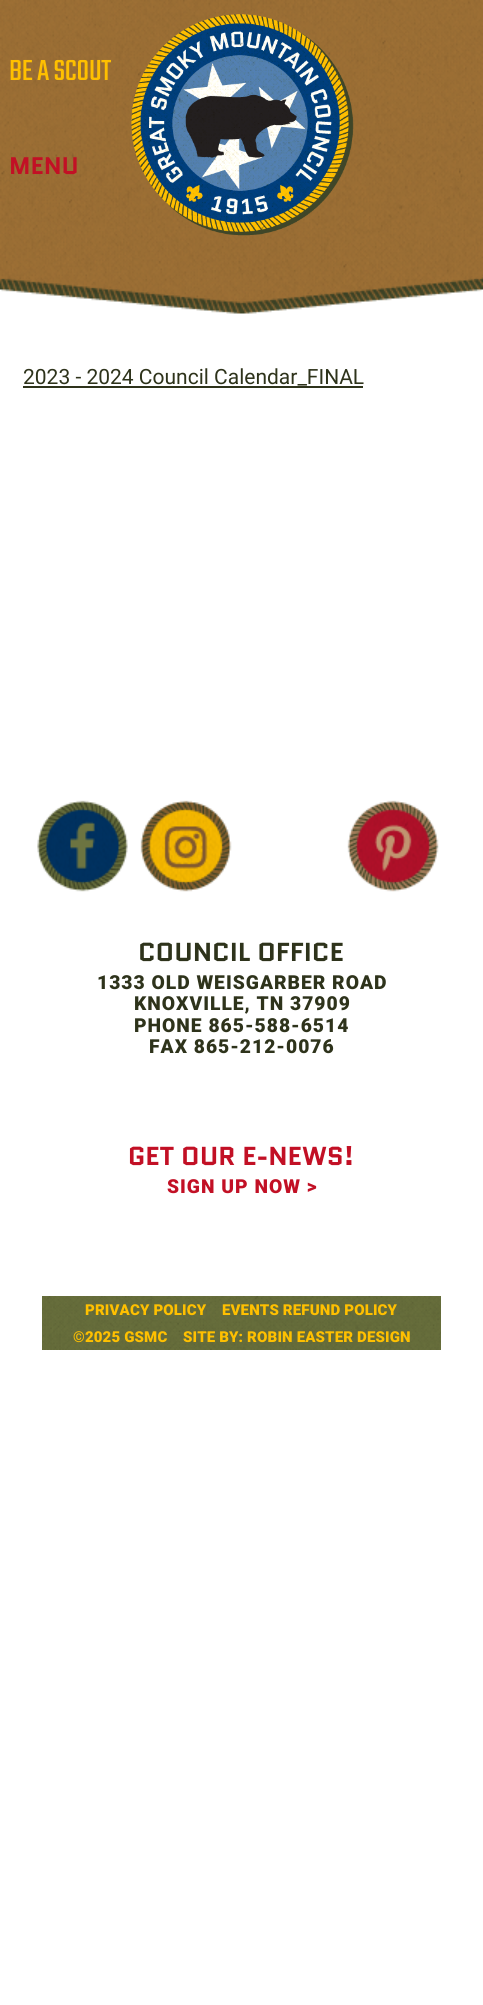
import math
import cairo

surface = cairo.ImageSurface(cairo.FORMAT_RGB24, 483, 2005)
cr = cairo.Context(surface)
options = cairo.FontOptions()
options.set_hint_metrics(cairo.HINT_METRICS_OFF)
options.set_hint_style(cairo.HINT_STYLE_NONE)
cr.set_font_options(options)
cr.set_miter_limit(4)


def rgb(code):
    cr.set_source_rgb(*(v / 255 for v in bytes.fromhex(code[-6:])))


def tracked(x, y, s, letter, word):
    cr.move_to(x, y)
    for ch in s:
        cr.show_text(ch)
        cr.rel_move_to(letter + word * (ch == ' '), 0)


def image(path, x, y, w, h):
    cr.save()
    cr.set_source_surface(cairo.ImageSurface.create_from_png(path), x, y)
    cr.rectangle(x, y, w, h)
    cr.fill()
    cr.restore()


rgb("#ffffff")
cr.paint()
image("img/1.png", 0, 0, 483, 314)
image("img/2.png", 131, 14, 223, 222)
rgb("#2e331b")
cr.rectangle(23, 386, 340, 2)
cr.fill()
image("img/3.png", 37, 800, 91, 92)
image("img/4.png", 140, 800, 92, 92)
image("img/5.png", 347, 800, 92, 92)
image("img/6.png", 42, 1296, 399, 54)
cr.select_font_face("Teko")
cr.set_font_size(32)
rgb("#ffc000")
tracked(9, 80, "BE A SCOUT", -0.25, 0)
cr.select_font_face("Quantico", cairo.FONT_SLANT_NORMAL, cairo.FONT_WEIGHT_BOLD)
cr.set_font_size(24)
rgb("#c21025")
cr.move_to(9, 174)
cr.show_text("MENU")
cr.select_font_face("Roboto")
cr.set_font_size(21)
rgb("#2e331b")
cr.move_to(23, 384)
cr.show_text("2023 - 2024 Council Calendar_FINAL")
cr.select_font_face("Quantico", cairo.FONT_SLANT_NORMAL, cairo.FONT_WEIGHT_BOLD)
cr.set_font_size(26)
cr.move_to(138, 961)
cr.show_text("COUNCIL OFFICE")
cr.select_font_face("Roboto Black")
cr.set_font_size(19.25)
for x, y, s in [
    (97, 989, "1333 OLD WEISGARBER ROAD"),
    (134, 1010, "KNOXVILLE, TN 37909"),
    (134, 1032, "PHONE 865-588-6514"),
    (149, 1053, "FAX 865-212-0076"),
]:
    tracked(x, y, s, 1, 0)
cr.select_font_face("Quantico", cairo.FONT_SLANT_NORMAL, cairo.FONT_WEIGHT_BOLD)
cr.set_font_size(26)
rgb("#c21025")
cr.move_to(128, 1165)
cr.show_text("GET OUR E-NEWS!")
cr.select_font_face("Roboto Black")
cr.set_font_size(19.25)
tracked(167, 1193, "SIGN UP NOW >", 1, 0)
cr.set_font_size(15)
rgb("#ffc000")
for x, y, s in [
    (85, 1315, "PRIVACY POLICY"),
    (222, 1315, "EVENTS REFUND POLICY"),
    (73, 1342, "©2025 GSMC    SITE BY: ROBIN EASTER DESIGN"),
]:
    tracked(x, y, s, 0.15, 0)
surface.write_to_png("page.png")
